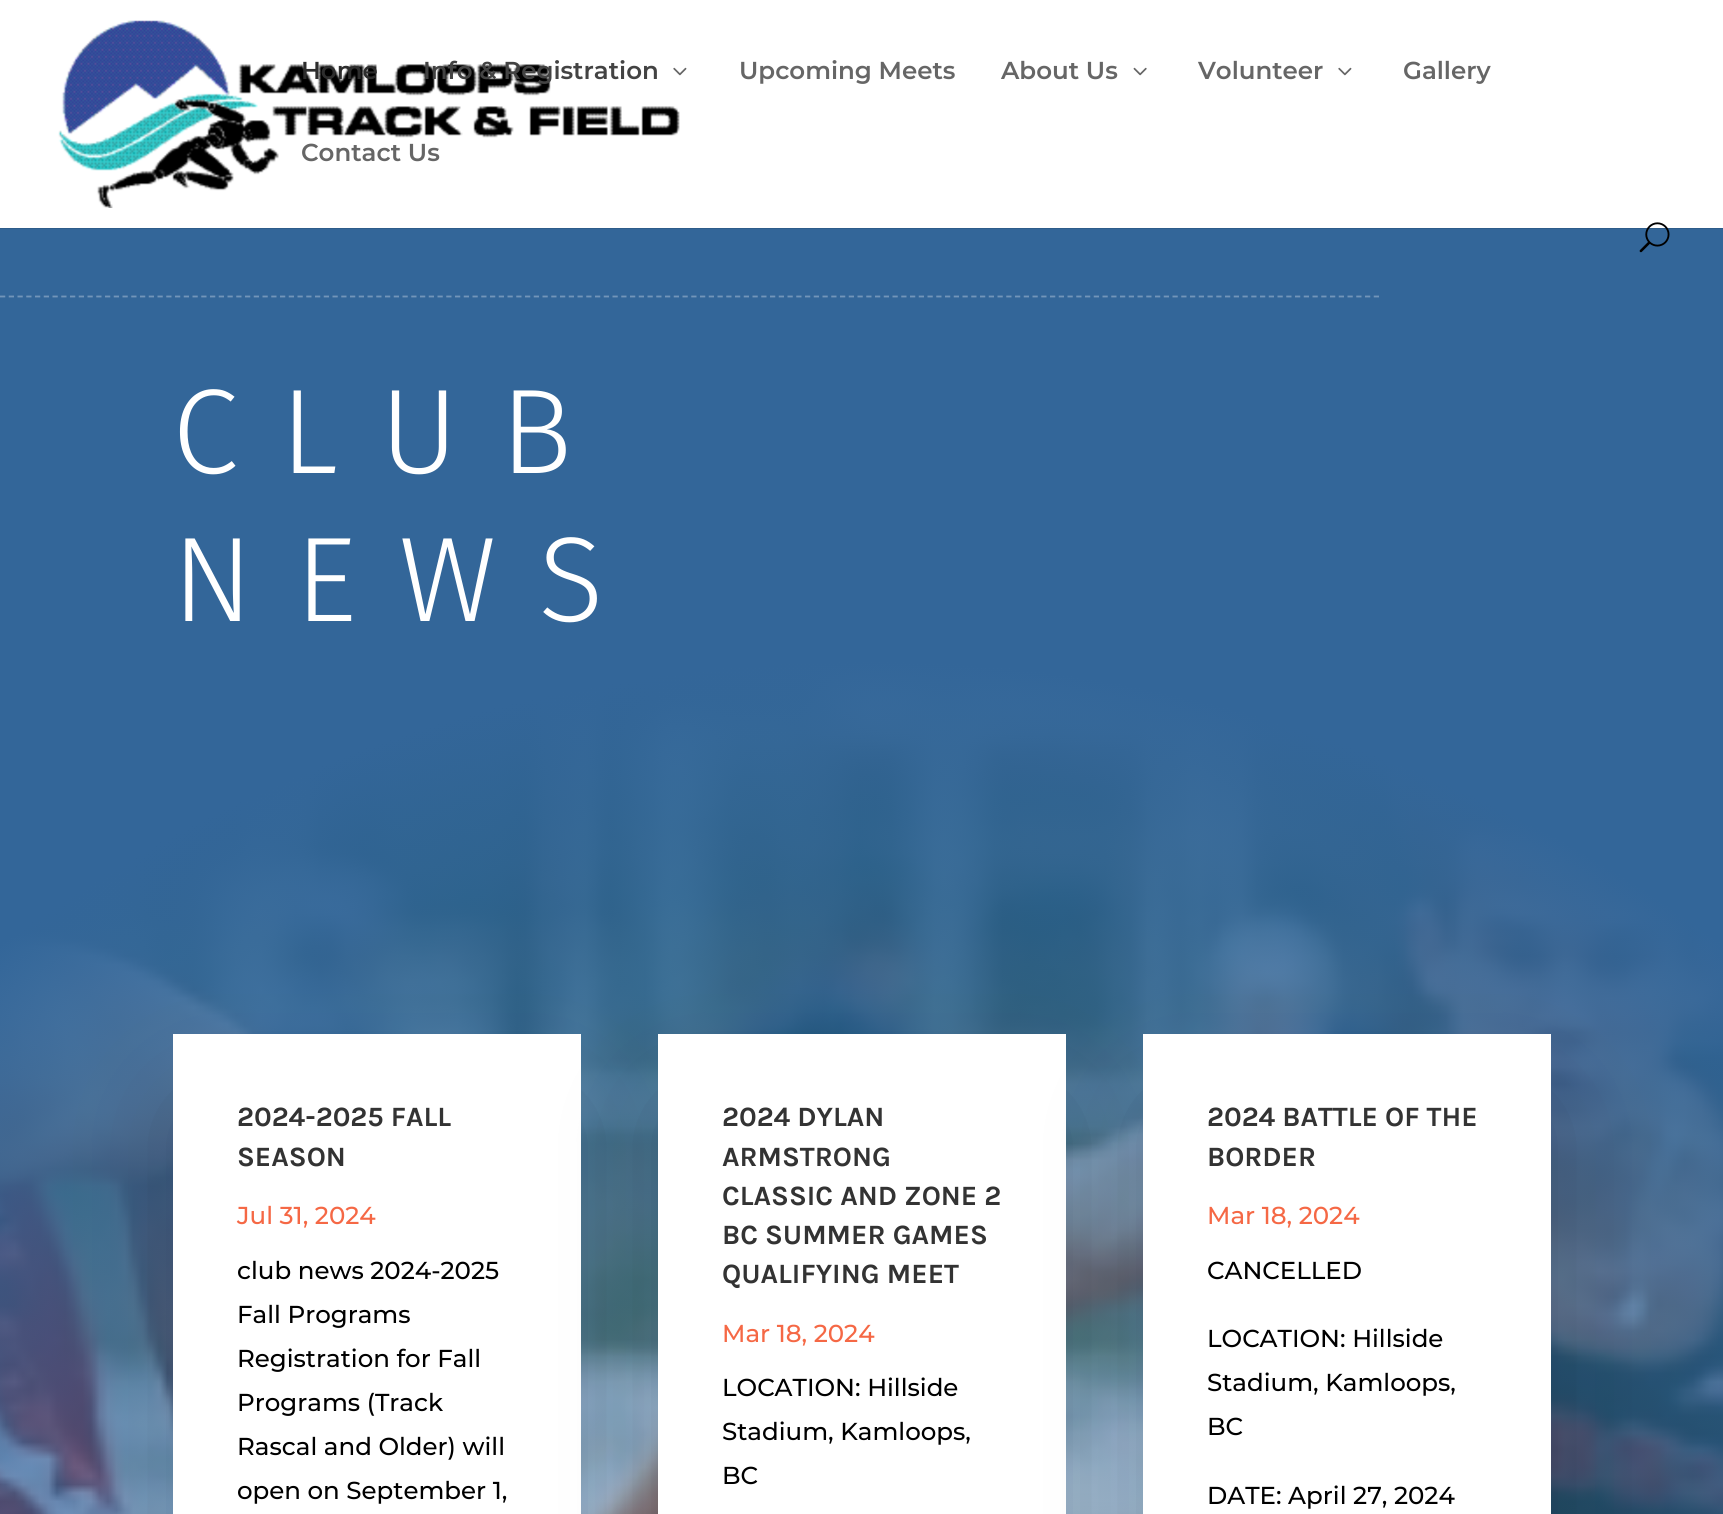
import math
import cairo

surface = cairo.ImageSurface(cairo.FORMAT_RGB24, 1723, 1514)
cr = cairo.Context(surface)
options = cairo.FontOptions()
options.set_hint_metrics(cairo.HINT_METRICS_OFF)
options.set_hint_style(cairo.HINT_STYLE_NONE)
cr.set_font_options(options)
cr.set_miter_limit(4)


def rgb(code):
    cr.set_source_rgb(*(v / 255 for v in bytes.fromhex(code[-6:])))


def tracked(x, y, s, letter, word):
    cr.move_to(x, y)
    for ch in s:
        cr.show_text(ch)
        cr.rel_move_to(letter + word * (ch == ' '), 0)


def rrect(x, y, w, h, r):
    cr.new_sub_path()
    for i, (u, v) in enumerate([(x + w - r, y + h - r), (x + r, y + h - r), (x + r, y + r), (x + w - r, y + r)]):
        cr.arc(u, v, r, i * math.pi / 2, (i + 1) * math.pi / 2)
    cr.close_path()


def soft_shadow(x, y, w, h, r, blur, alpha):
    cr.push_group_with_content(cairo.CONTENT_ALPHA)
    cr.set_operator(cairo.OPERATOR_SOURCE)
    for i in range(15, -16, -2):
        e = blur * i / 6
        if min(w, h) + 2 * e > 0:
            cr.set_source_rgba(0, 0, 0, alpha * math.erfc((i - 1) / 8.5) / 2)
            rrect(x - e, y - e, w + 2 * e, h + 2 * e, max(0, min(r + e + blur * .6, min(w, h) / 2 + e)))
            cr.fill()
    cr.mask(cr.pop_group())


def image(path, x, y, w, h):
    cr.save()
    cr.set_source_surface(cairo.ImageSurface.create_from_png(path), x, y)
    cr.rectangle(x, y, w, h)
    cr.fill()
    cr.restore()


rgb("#ffffff")
cr.paint()
rgb("#2e5c8a")
cr.new_path()
cr.move_to(0, 228)
cr.line_to(0, 229)
cr.line_to(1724, 229)
cr.line_to(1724, 2)
cr.line_to(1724, 228)
cr.close_path()
cr.fill()
image("img/1.png", 58, 20, 622, 188)
image("img/2.png", 673, 67, 14, 9)
image("img/3.png", 1133, 67, 14, 9)
image("img/2.png", 1338, 67, 14, 9)
image("img/5.png", 0, 229, 1723, 1285)
image("img/4.png", 1639, 222, 31, 31)
cr.new_path()
cr.move_to(0, 296.5)
cr.line_to(1379, 296.5)
rgb("#7295b9")
cr.set_line_width(1.8)
cr.set_dash([5.25, 3.5])
cr.stroke()
rgb("#141617")
soft_shadow(194, 1115, 366, 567, 0, 56, 0.19)
rgb("#ffffff")
cr.rectangle(173, 1034, 408, 480)
cr.fill()
rgb("#141617")
soft_shadow(679, 1115, 366, 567, 0, 56, 0.19)
rgb("#ffffff")
cr.rectangle(658, 1034, 408, 480)
cr.fill()
rgb("#141617")
soft_shadow(1164, 1115, 366, 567, 0, 56, 0.19)
rgb("#ffffff")
cr.rectangle(1143, 1034, 408, 480)
cr.fill()
cr.select_font_face("Montserrat SemiBold")
cr.set_font_size(24.5)
rgb("#2d2d2d")
cr.move_to(301, 79)
cr.show_text("Home")
rgb("#434343")
cr.move_to(423, 79)
cr.show_text("Info & Registration")
rgb("#666666")
for x, y, s in [
    (739, 79, "Upcoming Meets"),
    (1001, 79, "About Us"),
    (1198, 79, "Volunteer"),
    (1403, 79, "Gallery"),
    (301, 161, "Contact Us"),
]:
    cr.move_to(x, y)
    cr.show_text(s)
cr.select_font_face("Fira Sans Light")
cr.set_font_size(120.5)
rgb("#ffffff")
tracked(172, 473, "CLUB", 42, 0)
tracked(172, 621, "NEWS", 42, 0)
cr.select_font_face("Karla", cairo.FONT_SLANT_NORMAL, cairo.FONT_WEIGHT_BOLD)
cr.set_font_size(28)
rgb("#333333")
cr.move_to(237, 1126)
cr.show_text("2024-2025 FALL")
cr.move_to(237, 1166)
cr.show_text("SEASON")
cr.select_font_face("Montserrat Medium")
cr.set_font_size(24.5)
rgb("#f56845")
cr.move_to(237, 1224)
cr.show_text("Jul 31, 2024")
rgb("#000000")
for x, y, s in [
    (237, 1279, "club news 2024-2025"),
    (237, 1323, "Fall Programs"),
    (237, 1367, "Registration for Fall"),
    (237, 1411, "Programs (Track"),
    (237, 1455, "Rascal and Older) will"),
    (237, 1499, "open on September 1,"),
]:
    cr.move_to(x, y)
    cr.show_text(s)
cr.select_font_face("Karla", cairo.FONT_SLANT_NORMAL, cairo.FONT_WEIGHT_BOLD)
cr.set_font_size(28)
rgb("#333333")
for x, y, s in [
    (722, 1126, "2024 DYLAN"),
    (722, 1166, "ARMSTRONG"),
    (722, 1205, "CLASSIC AND ZONE 2"),
    (722, 1244, "BC SUMMER GAMES"),
    (722, 1283, "QUALIFYING MEET"),
]:
    cr.move_to(x, y)
    cr.show_text(s)
cr.select_font_face("Montserrat Medium")
cr.set_font_size(24.5)
rgb("#f56845")
cr.move_to(722, 1342)
cr.show_text("Mar 18, 2024")
rgb("#000000")
for x, y, s in [
    (722, 1396, "LOCATION: Hillside"),
    (722, 1440, "Stadium, Kamloops,"),
    (722, 1484, "BC"),
]:
    cr.move_to(x, y)
    cr.show_text(s)
cr.select_font_face("Karla", cairo.FONT_SLANT_NORMAL, cairo.FONT_WEIGHT_BOLD)
cr.set_font_size(28)
rgb("#333333")
cr.move_to(1207, 1126)
cr.show_text("2024 BATTLE OF THE")
cr.move_to(1207, 1166)
cr.show_text("BORDER")
cr.select_font_face("Montserrat Medium")
cr.set_font_size(24.5)
rgb("#f56845")
cr.move_to(1207, 1224)
cr.show_text("Mar 18, 2024")
rgb("#000000")
for x, y, s in [
    (1207, 1279, "CANCELLED"),
    (1207, 1347, "LOCATION: Hillside"),
    (1207, 1391, "Stadium, Kamloops,"),
    (1207, 1435, "BC"),
    (1207, 1504, "DATE: April 27, 2024"),
]:
    cr.move_to(x, y)
    cr.show_text(s)
surface.write_to_png("page.png")
